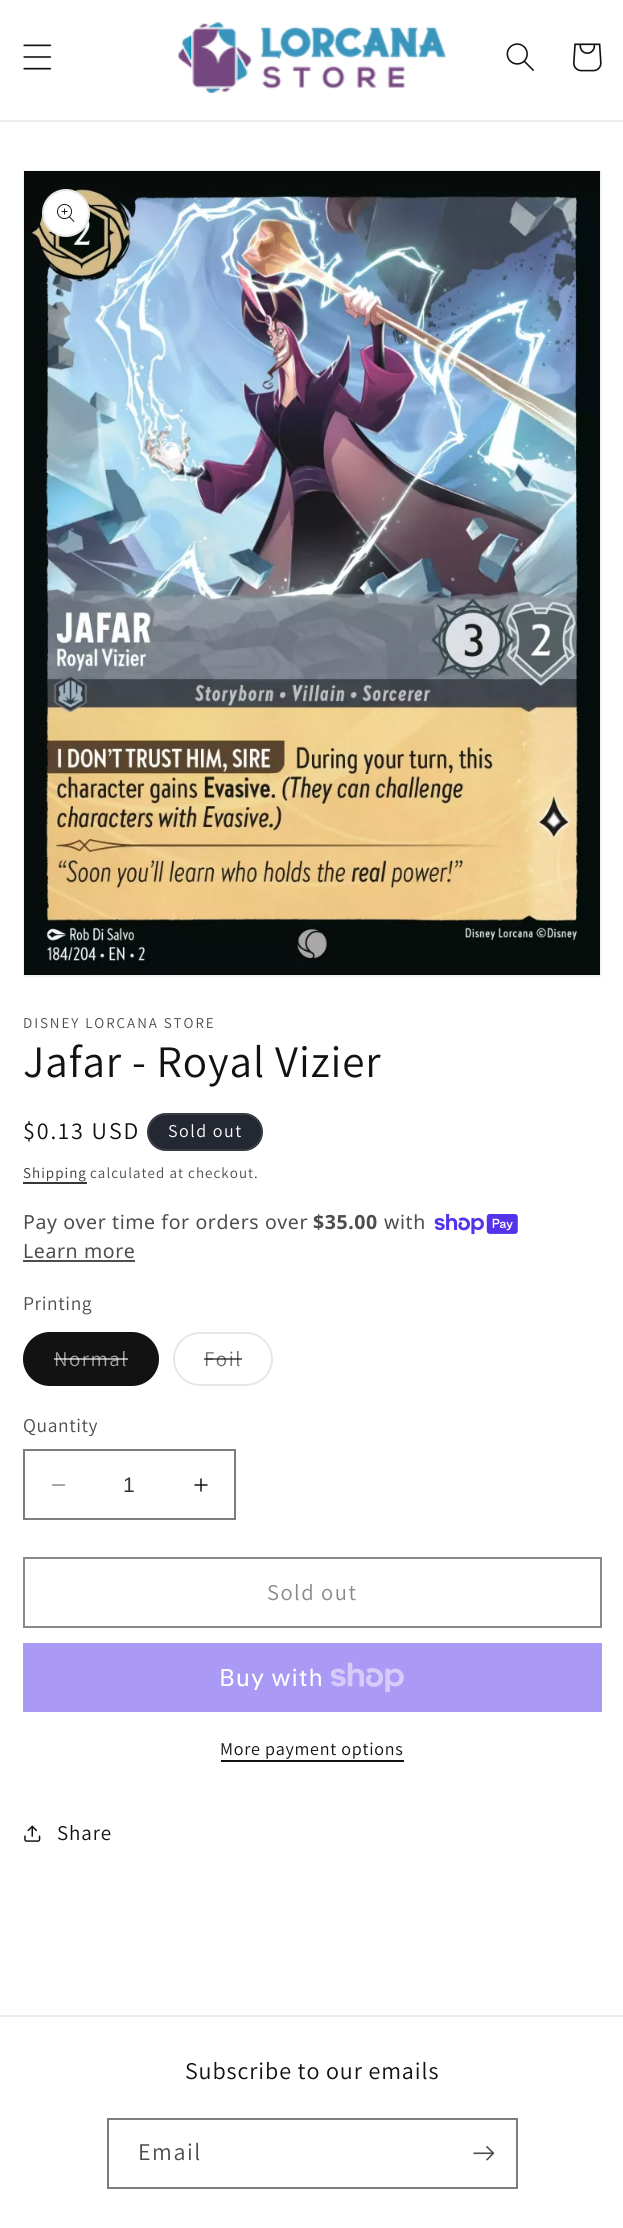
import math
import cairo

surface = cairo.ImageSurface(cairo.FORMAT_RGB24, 623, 2228)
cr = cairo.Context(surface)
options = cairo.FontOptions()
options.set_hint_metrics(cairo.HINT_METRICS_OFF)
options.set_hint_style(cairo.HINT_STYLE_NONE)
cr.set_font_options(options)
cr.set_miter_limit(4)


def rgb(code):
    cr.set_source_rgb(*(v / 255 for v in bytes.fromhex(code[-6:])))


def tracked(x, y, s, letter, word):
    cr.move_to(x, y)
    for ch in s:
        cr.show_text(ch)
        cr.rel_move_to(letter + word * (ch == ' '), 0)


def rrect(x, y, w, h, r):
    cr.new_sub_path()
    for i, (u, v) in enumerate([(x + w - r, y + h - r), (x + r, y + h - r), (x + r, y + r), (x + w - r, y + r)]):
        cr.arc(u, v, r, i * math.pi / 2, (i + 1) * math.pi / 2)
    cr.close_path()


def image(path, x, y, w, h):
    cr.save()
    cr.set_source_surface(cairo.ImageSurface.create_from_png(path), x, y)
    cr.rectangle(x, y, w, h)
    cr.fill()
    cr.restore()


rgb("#ffffff")
cr.paint()
rgb("#ececec")
cr.rectangle(0, 120, 623, 2)
cr.fill()
image("img/1.png", 23, 44, 29, 26)
image("img/2.png", 178, 22, 268, 71)
image("img/3.png", 506, 43, 28, 28)
image("img/4.png", 573, 43, 29, 29)
cr.rectangle(24, 171, 577, 805)
rgb("#f3f3f3")
cr.stroke()
image("img/5.png", 24, 171, 576, 804)
rgb("#ffffff")
cr.arc(66, 213, 24, 0, 2 * math.pi)
cr.fill()
cr.arc(66, 213, 23, 0, 2 * math.pi)
cr.set_source_rgba(0.071, 0.071, 0.071, 0.1)
cr.stroke()
image("img/6.png", 57, 204, 18, 18)
rgb("#242833")
rrect(147, 1113, 116, 38, 19)
cr.fill()
rrect(148, 1114, 114, 36, 18)
cr.set_source_rgba(1, 1, 1, 0.1)
cr.stroke()
rgb("#363636")
cr.rectangle(23, 1182, 64, 2)
cr.fill()
image("img/7.png", 434, 1214, 84, 21)
rgb("#4d4d4d")
cr.rectangle(23, 1260, 112, 2)
cr.fill()
rgb("#121212")
rrect(23, 1332, 136, 54, 27)
cr.fill()
rrect(24, 1333, 134, 52, 26)
cr.set_source_rgba(0.071, 0.071, 0.071, 0.1)
cr.stroke()
rrect(174, 1333, 98, 52, 26)
rgb("#e7e7e7")
cr.stroke()
image("img/8.png", 51, 1484, 15, 2)
image("img/9.png", 194, 1478, 14, 14)
cr.rectangle(24, 1450, 211, 69)
rgb("#7d7d7d")
cr.stroke()
cr.rectangle(24, 1558, 577, 69)
rgb("#898989")
cr.stroke()
rgb("#aa99f5")
cr.rectangle(23, 1643, 579, 69)
cr.fill()
image("img/10.png", 330, 1662, 74, 30)
rgb("#121212")
cr.rectangle(221, 1760, 183, 2)
cr.fill()
image("img/11.png", 24, 1825, 17, 17)
rgb("#ececec")
cr.rectangle(0, 2015, 623, 2)
cr.fill()
cr.rectangle(108, 2119, 409, 69)
rgb("#7d7d7d")
cr.stroke()
image("img/12.png", 473, 2146, 22, 15)
cr.select_font_face("Assistant")
cr.set_font_size(15)
rgb("#4d4d4d")
tracked(23, 1028, "DISNEY LORCANA STORE", 1.95, 0)
cr.set_font_size(45)
rgb("#121212")
tracked(23, 1077, "Jafar - Royal Vizier", 0.9, 0)
cr.set_font_size(24)
tracked(23, 1139, "$0.13 USD", 1.95, 0)
cr.set_font_size(18)
rgb("#ffffff")
tracked(168, 1137, "Sold out", 1.5, 0)
cr.set_font_size(15)
rgb("#363636")
tracked(23, 1178, "Shipping", 1.05, 0)
rgb("#4d4d4d")
tracked(90, 1178, "calculated at checkout.", 1.05, 0)
cr.select_font_face("Noto Sans")
cr.set_font_size(19.5)
tracked(23, 1229, "Pay over time for orders over", 0.6, 0)
cr.select_font_face("Noto Sans", cairo.FONT_SLANT_NORMAL, cairo.FONT_WEIGHT_BOLD)
tracked(313, 1229, "$35.00", 0.6, 0)
cr.select_font_face("Noto Sans")
tracked(384, 1229, "with", 0.6, 0)
tracked(23, 1258, "Learn more", 0.6, 0)
cr.select_font_face("Assistant")
tracked(23, 1310, "Printing", 0.6, 0)
cr.set_font_size(21)
rgb("#a0a0a0")
tracked(54, 1366, "Normal", 1.5, 0)
cr.set_source_rgba(1, 1, 1, 0.6)
cr.rectangle(54, 1358, 74, 2)
cr.fill()
rgb("#717171")
tracked(204, 1366, "Foil", 1.5, 0)
cr.set_source_rgba(0.071, 0.071, 0.071, 0.6)
cr.rectangle(204, 1358, 38, 2)
cr.fill()
cr.set_font_size(19.5)
rgb("#4d4d4d")
tracked(23, 1432, "Quantity", 0.6, 0)
cr.select_font_face("Liberation Sans")
cr.set_font_size(21)
rgb("#363636")
cr.move_to(123, 1492)
cr.show_text("1")
cr.select_font_face("Assistant")
cr.set_font_size(22.5)
rgb("#898989")
tracked(267, 1600, "Sold out", 1.5, 0)
cr.select_font_face("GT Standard")
cr.set_font_size(24)
rgb("#ffffff")
tracked(219, 1686, "Buy with", 0.9, 0)
cr.select_font_face("Assistant")
cr.set_font_size(18)
rgb("#121212")
tracked(220, 1755, "More payment options", 0.75, 0)
cr.set_font_size(21)
tracked(57, 1840, "Share", 0.9, 0)
cr.set_font_size(24)
tracked(185, 2079, "Subscribe to our emails", 0.9, 0)
rgb("#4d4d4d")
tracked(138, 2160, "Email", 1.5, 0)
surface.write_to_png("page.png")
